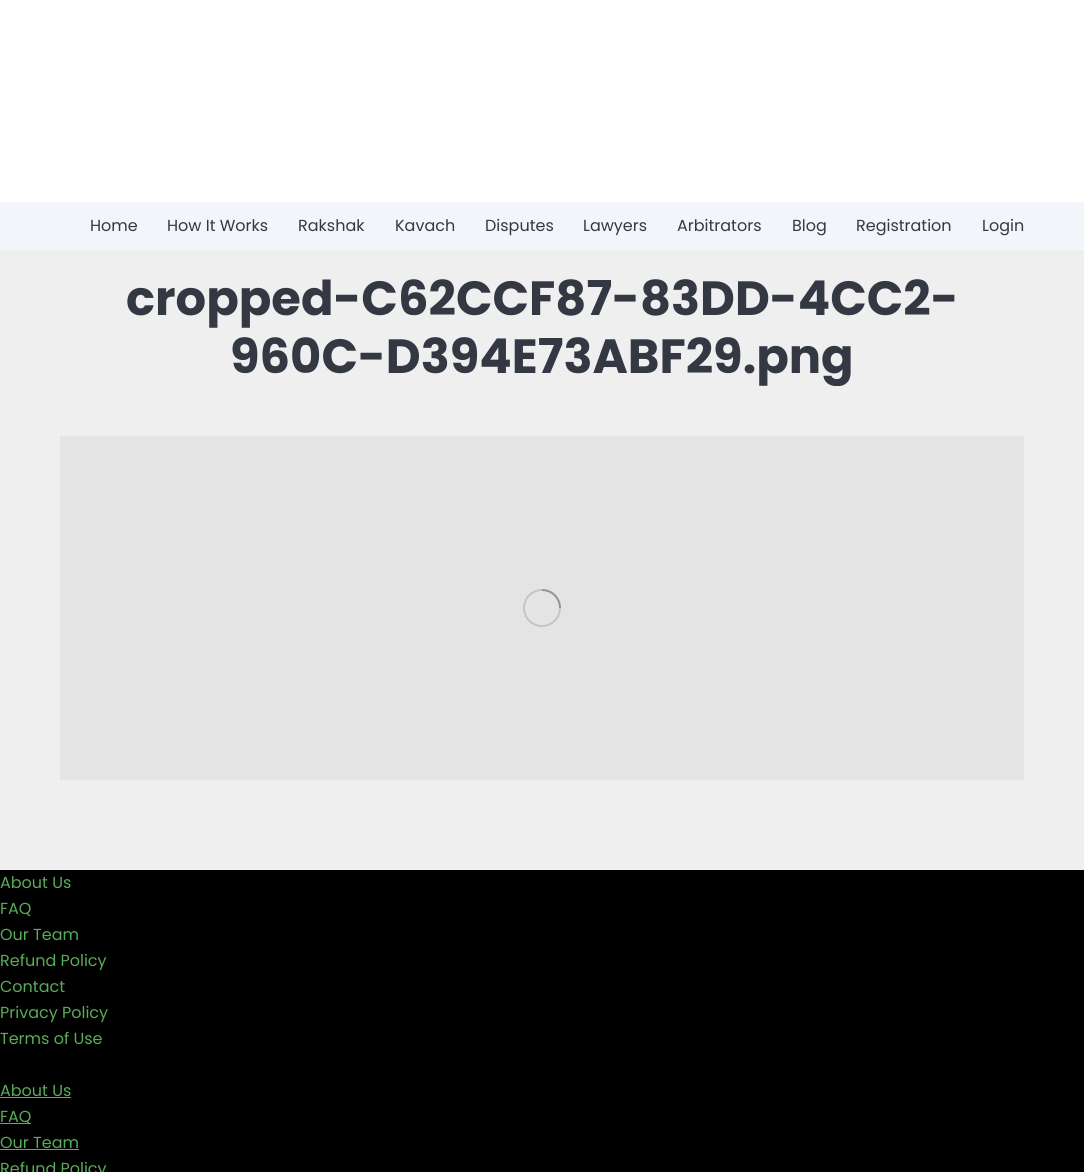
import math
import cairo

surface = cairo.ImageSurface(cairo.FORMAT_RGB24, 1084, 1172)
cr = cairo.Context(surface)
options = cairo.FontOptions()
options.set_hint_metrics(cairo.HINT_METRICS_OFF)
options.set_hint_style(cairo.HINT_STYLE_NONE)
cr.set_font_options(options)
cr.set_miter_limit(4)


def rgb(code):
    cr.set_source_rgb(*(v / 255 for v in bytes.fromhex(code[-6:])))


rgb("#efeff0")
cr.paint()
for x, y, w, h, color in [
    (0, 0, 1084, 202, "#ffffff"),
    (0, 202, 1084, 48, "#f2f5fa"),
    (60, 436, 964, 344, "#e4e4e4"),
]:
    rgb(color)
    cr.rectangle(x, y, w, h)
    cr.fill()
cr.arc(542, 608, 18, 0, 2 * math.pi)
rgb("#c5c5c5")
cr.stroke()
cr.new_path()
cr.move_to(560, 608)
cr.curve_to(560, 598, 552, 590, 542, 590)
cr.set_source_rgba(0, 0, 0, 0.25)
cr.stroke()
for x, y, w, h, color in [
    (0, 870, 1084, 302, "#000000"),
    (0, 1097, 71, 1, "#58ac56"),
    (0, 1123, 31, 1, "#58ac56"),
    (0, 1149, 79, 1, "#58ac56"),
]:
    rgb(color)
    cr.rectangle(x, y, w, h)
    cr.fill()
cr.select_font_face("Poppins")
cr.set_font_size(16)
rgb("#333843")
for x, y, s in [
    (90, 231, "Home"),
    (167, 231, "How It Works"),
    (298, 231, "Rakshak"),
    (395, 231, "Kavach"),
    (485, 231, "Disputes"),
    (583, 231, "Lawyers"),
    (677, 231, "Arbitrators"),
    (792, 231, "Blog"),
    (856, 231, "Registration"),
    (982, 231, "Login"),
]:
    cr.move_to(x, y)
    cr.show_text(s)
cr.select_font_face("Poppins", cairo.FONT_SLANT_NORMAL, cairo.FONT_WEIGHT_BOLD)
cr.set_font_size(48)
cr.move_to(126, 315)
cr.show_text("cropped-C62CCF87-83DD-4CC2-")
cr.save()
cr.rectangle(60, 270, 964, 116)
cr.clip()
cr.move_to(230, 373)
cr.show_text("960C-D394E73ABF29.png")
cr.restore()
cr.select_font_face("Poppins")
cr.set_font_size(16)
rgb("#58ac56")
for x, y, s in [
    (0, 888, "About Us"),
    (0, 914, "FAQ"),
    (0, 940, "Our Team"),
    (0, 966, "Refund Policy"),
    (0, 992, "Contact"),
    (0, 1018, "Privacy Policy"),
    (0, 1044, "Terms of Use"),
    (0, 1096, "About Us"),
    (0, 1122, "FAQ"),
    (0, 1148, "Our Team"),
    (0, 1174, "Refund Policy"),
]:
    cr.move_to(x, y)
    cr.show_text(s)
surface.write_to_png("page.png")
